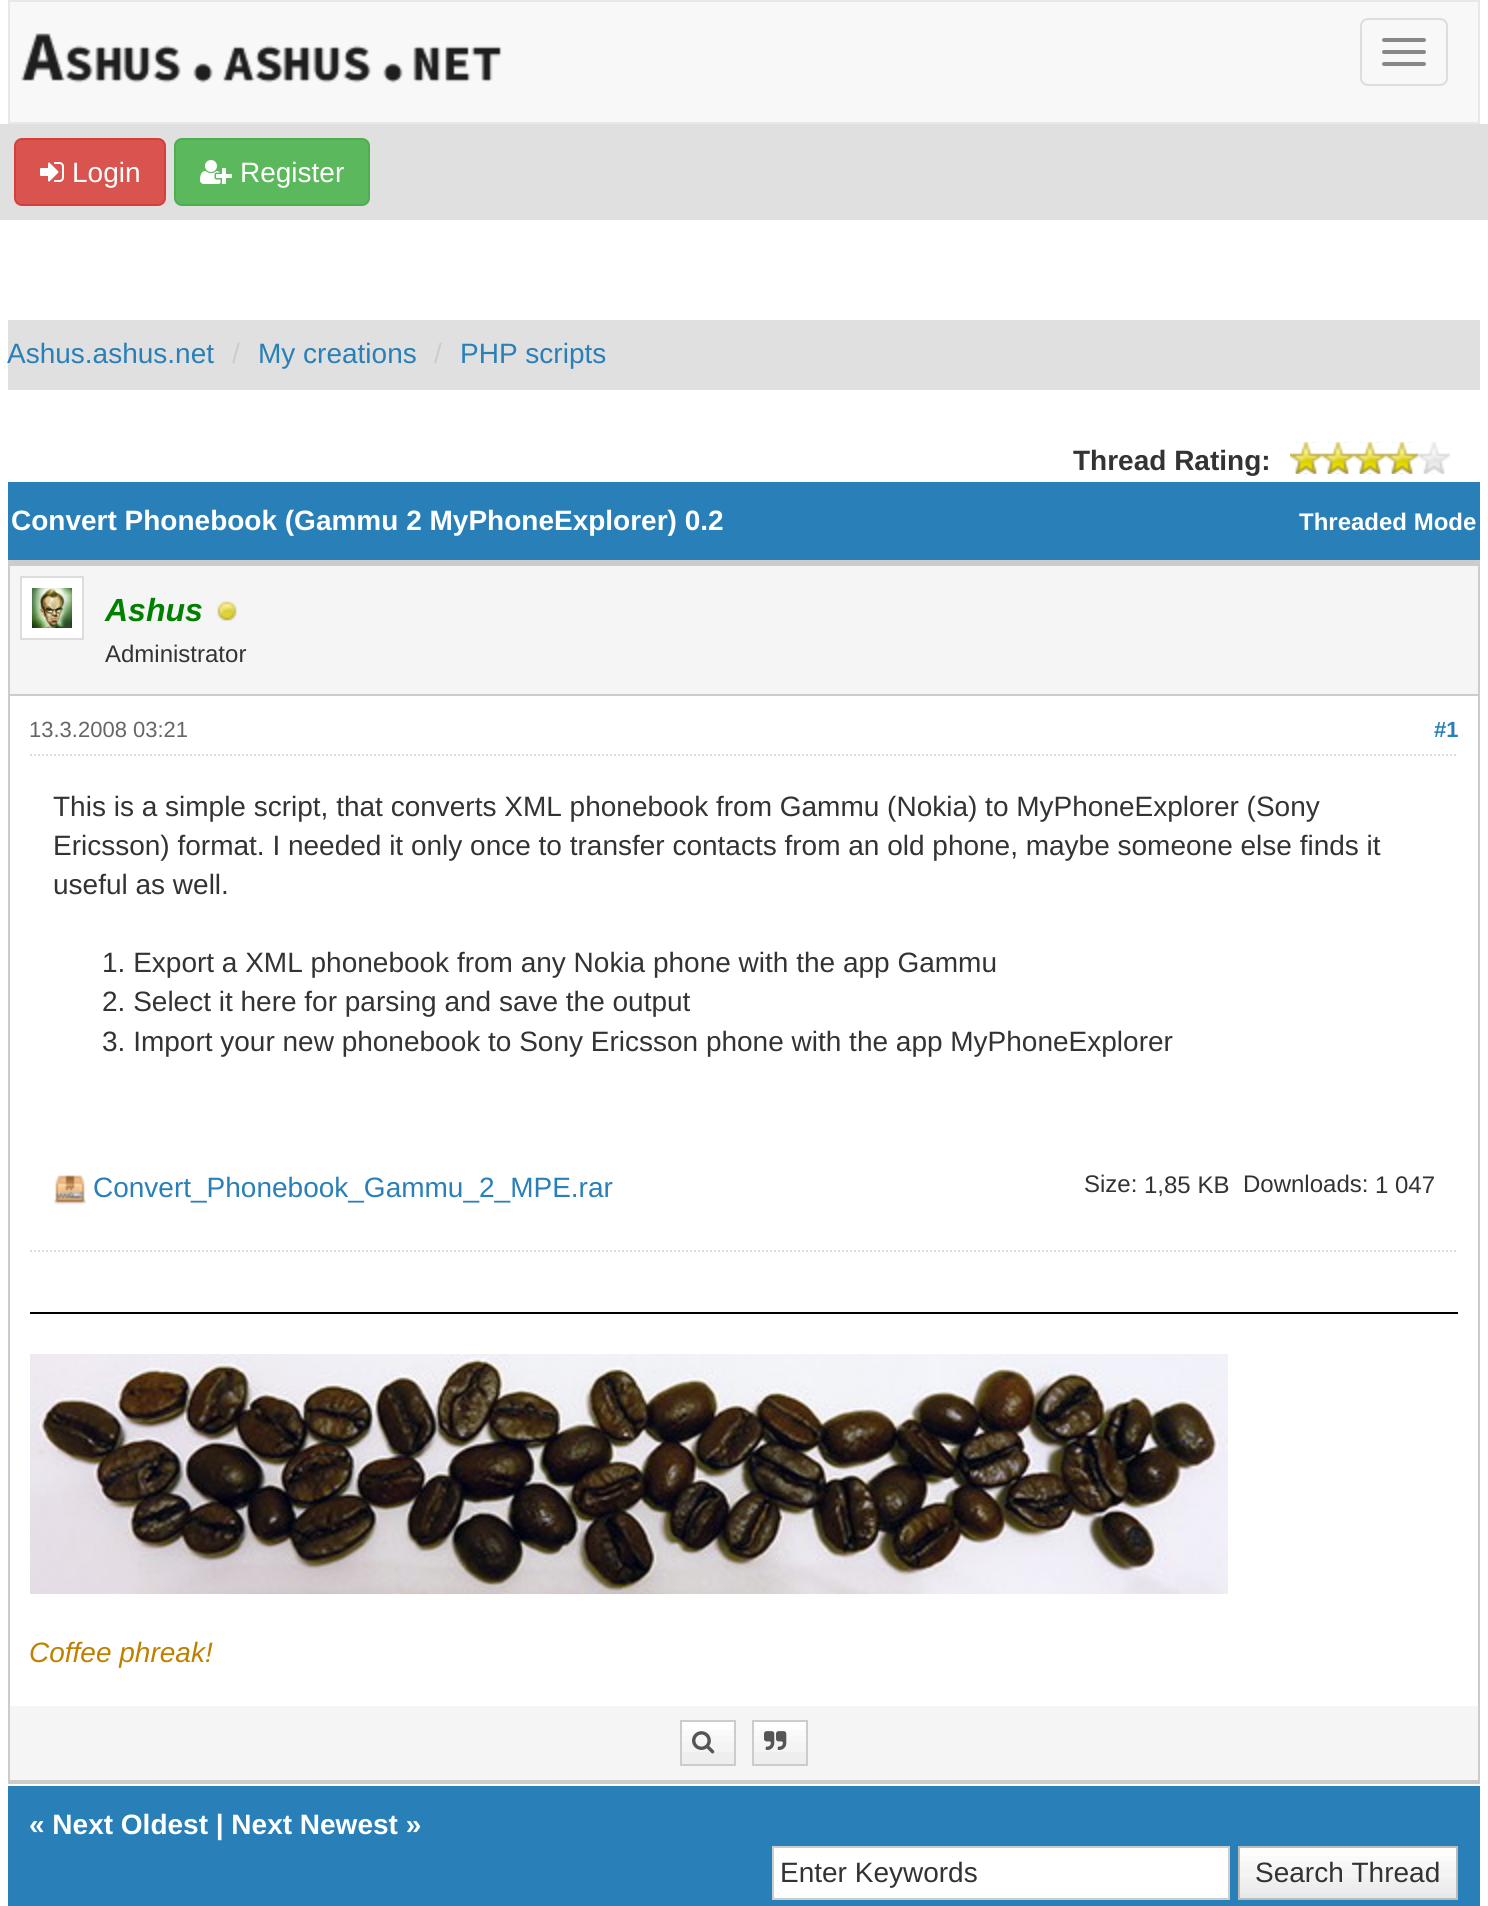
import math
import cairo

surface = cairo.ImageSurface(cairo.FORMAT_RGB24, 1488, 1906)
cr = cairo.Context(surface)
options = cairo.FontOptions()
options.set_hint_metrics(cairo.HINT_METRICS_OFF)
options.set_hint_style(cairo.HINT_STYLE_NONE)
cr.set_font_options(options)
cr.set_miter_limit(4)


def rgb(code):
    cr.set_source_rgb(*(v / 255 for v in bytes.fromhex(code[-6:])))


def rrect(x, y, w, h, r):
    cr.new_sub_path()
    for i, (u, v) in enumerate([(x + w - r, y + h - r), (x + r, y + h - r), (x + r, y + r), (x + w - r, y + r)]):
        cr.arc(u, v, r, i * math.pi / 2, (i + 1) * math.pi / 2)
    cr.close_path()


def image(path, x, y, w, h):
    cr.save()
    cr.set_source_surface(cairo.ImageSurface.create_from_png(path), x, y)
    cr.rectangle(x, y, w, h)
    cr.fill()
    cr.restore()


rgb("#ffffff")
cr.paint()
rgb("#f8f8f8")
cr.rectangle(9, 1, 1470, 122)
cr.fill_preserve()
rgb("#e7e7e7")
cr.stroke()
image("img/1.png", 21, 33, 481, 50)
rrect(1361, 19, 86, 66, 7)
rgb("#dddddd")
cr.stroke()
rgb("#888888")
rrect(1382, 38, 44, 4, 2)
cr.fill()
rrect(1382, 50, 44, 4, 2)
cr.fill()
rrect(1382, 62, 44, 4, 2)
cr.fill()
rgb("#e0e0e0")
cr.rectangle(0, 124, 1488, 96)
cr.fill()
rgb("#d9534f")
rrect(15, 139, 150, 66, 7)
cr.fill_preserve()
rgb("#d43f3a")
cr.stroke()
image("img/2.png", 40, 162, 24, 20)
rgb("#5cb85c")
rrect(175, 139, 194, 66, 7)
cr.fill_preserve()
rgb("#4cae4c")
cr.stroke()
image("img/3.png", 200, 160, 32, 24)
rgb("#e0e0e0")
cr.rectangle(8, 320, 1472, 70)
cr.fill()
image("img/4.png", 1290, 442, 160, 32)
image("img/5.png", 1290, 442, 128, 32)
rgb("#2980b9")
cr.rectangle(8, 482, 1472, 78)
cr.fill()
cr.rectangle(9, 561, 1470, 1222)
rgb("#cccccc")
cr.stroke()
for x, y, w, h, color in [
    (10, 566, 1468, 128, "#f5f5f5"),
    (10, 562, 1468, 4, "#cccccc"),
    (10, 694, 1468, 2, "#cccccc"),
]:
    rgb(color)
    cr.rectangle(x, y, w, h)
    cr.fill()
rgb("#ffffff")
cr.rectangle(21, 577, 62, 62)
cr.fill_preserve()
rgb("#dddddd")
cr.stroke()
image("img/6.png", 32, 588, 40, 40)
image("img/7.png", 217, 601, 20, 20)
cr.new_path()
cr.move_to(30, 755)
cr.line_to(1458, 755)
cr.set_dash([2, 2])
cr.stroke()
image("img/8.png", 54, 1175, 32, 30)
cr.new_path()
cr.move_to(30, 1251)
cr.line_to(1458, 1251)
cr.stroke()
rgb("#000000")
cr.rectangle(30, 1312, 1428, 2)
cr.fill()
image("img/9.png", 30, 1354, 1198, 240)
for x, y, w, h, color in [
    (10, 1706, 1468, 74, "#f5f5f5"),
    (10, 1780, 1468, 2, "#cccccc"),
    (682, 1752, 52, 12, "#eeeeee"),
]:
    rgb(color)
    cr.rectangle(x, y, w, h)
    cr.fill()
image("img/10.png", 682, 1722, 52, 30)
cr.rectangle(681, 1721, 54, 44)
rgb("#cccccc")
cr.set_dash([])
cr.stroke()
image("img/11.png", 692, 1731, 23, 23)
rgb("#eeeeee")
cr.rectangle(754, 1752, 52, 12)
cr.fill()
image("img/10.png", 754, 1722, 52, 30)
cr.rectangle(753, 1721, 54, 44)
rgb("#cccccc")
cr.stroke()
image("img/12.png", 764, 1731, 23, 19)
rgb("#2980b9")
cr.rectangle(8, 1786, 1472, 120)
cr.fill()
rgb("#ffffff")
cr.rectangle(773, 1847, 456, 52)
cr.fill_preserve()
rgb("#cccccc")
cr.stroke()
image("img/13.png", 1240, 1848, 216, 50)
cr.rectangle(1239, 1847, 218, 52)
rgb("#bbbbbb")
cr.stroke()
cr.select_font_face("Liberation Sans")
cr.set_font_size(28)
rgb("#ffffff")
cr.move_to(72, 182)
cr.show_text("Login")
cr.move_to(240, 182)
cr.show_text("Register")
rgb("#2980b9")
cr.move_to(7, 363)
cr.show_text("Ashus.ashus.net")
rgb("#cccccc")
cr.move_to(232, 363)
cr.show_text("/")
rgb("#2980b9")
cr.move_to(258, 363)
cr.show_text("My creations")
rgb("#cccccc")
cr.move_to(434, 363)
cr.show_text("/")
rgb("#2980b9")
cr.move_to(460, 363)
cr.show_text("PHP scripts")
cr.select_font_face("Liberation Sans", cairo.FONT_SLANT_NORMAL, cairo.FONT_WEIGHT_BOLD)
rgb("#333333")
cr.move_to(1073, 470)
cr.show_text("Thread Rating:")
rgb("#ffffff")
cr.move_to(11, 530)
cr.show_text("Convert Phonebook (Gammu 2 MyPhoneExplorer) 0.2")
cr.set_font_size(24)
cr.move_to(1299, 530)
cr.show_text("Threaded Mode")
cr.select_font_face("Liberation Sans", cairo.FONT_SLANT_ITALIC, cairo.FONT_WEIGHT_BOLD)
cr.set_font_size(32)
rgb("#008000")
cr.move_to(105, 621)
cr.show_text("Ashus")
cr.select_font_face("Liberation Sans")
cr.set_font_size(24)
rgb("#333333")
cr.move_to(105, 662)
cr.show_text("Administrator")
cr.set_font_size(22)
rgb("#666666")
cr.move_to(29, 737)
cr.show_text("13.3.2008 03:21")
cr.select_font_face("Liberation Sans", cairo.FONT_SLANT_NORMAL, cairo.FONT_WEIGHT_BOLD)
rgb("#2980b9")
cr.move_to(1434, 737)
cr.show_text("#1")
cr.select_font_face("Liberation Sans")
cr.set_font_size(28)
rgb("#333333")
for x, y, s in [
    (53, 816, "This is a simple script, that converts XML phonebook from Gammu (Nokia) to MyPhoneExplorer (Sony"),
    (53, 855, "Ericsson) format. I needed it only once to transfer contacts from an old phone, maybe someone else finds it"),
    (53, 894, "useful as well."),
    (102, 972, "1. Export a XML phonebook from any Nokia phone with the app Gammu"),
    (102, 1011, "2. Select it here for parsing and save the output"),
    (102, 1051, "3. Import your new phonebook to Sony Ericsson phone with the app MyPhoneExplorer"),
]:
    cr.move_to(x, y)
    cr.show_text(s)
rgb("#2980b9")
cr.move_to(93, 1197)
cr.show_text("Convert_Phonebook_Gammu_2_MPE.rar")
cr.set_font_size(24)
rgb("#333333")
for x, y, s in [
    (1084, 1192, "Size:"),
    (1144, 1193, "1,85 KB"),
    (1243, 1192, "Downloads:"),
    (1375, 1193, "1 047"),
]:
    cr.move_to(x, y)
    cr.show_text(s)
cr.select_font_face("Liberation Sans", cairo.FONT_SLANT_ITALIC)
cr.set_font_size(28)
rgb("#bf8000")
cr.move_to(29, 1662)
cr.show_text("Coffee phreak!")
cr.select_font_face("Liberation Sans", cairo.FONT_SLANT_NORMAL, cairo.FONT_WEIGHT_BOLD)
rgb("#ffffff")
cr.move_to(29, 1834)
cr.show_text("« Next Oldest | Next Newest »")
cr.select_font_face("Liberation Sans")
rgb("#333333")
cr.move_to(780, 1882)
cr.show_text("Enter Keywords")
cr.move_to(1255, 1882)
cr.show_text("Search Thread")
surface.write_to_png("page.png")
